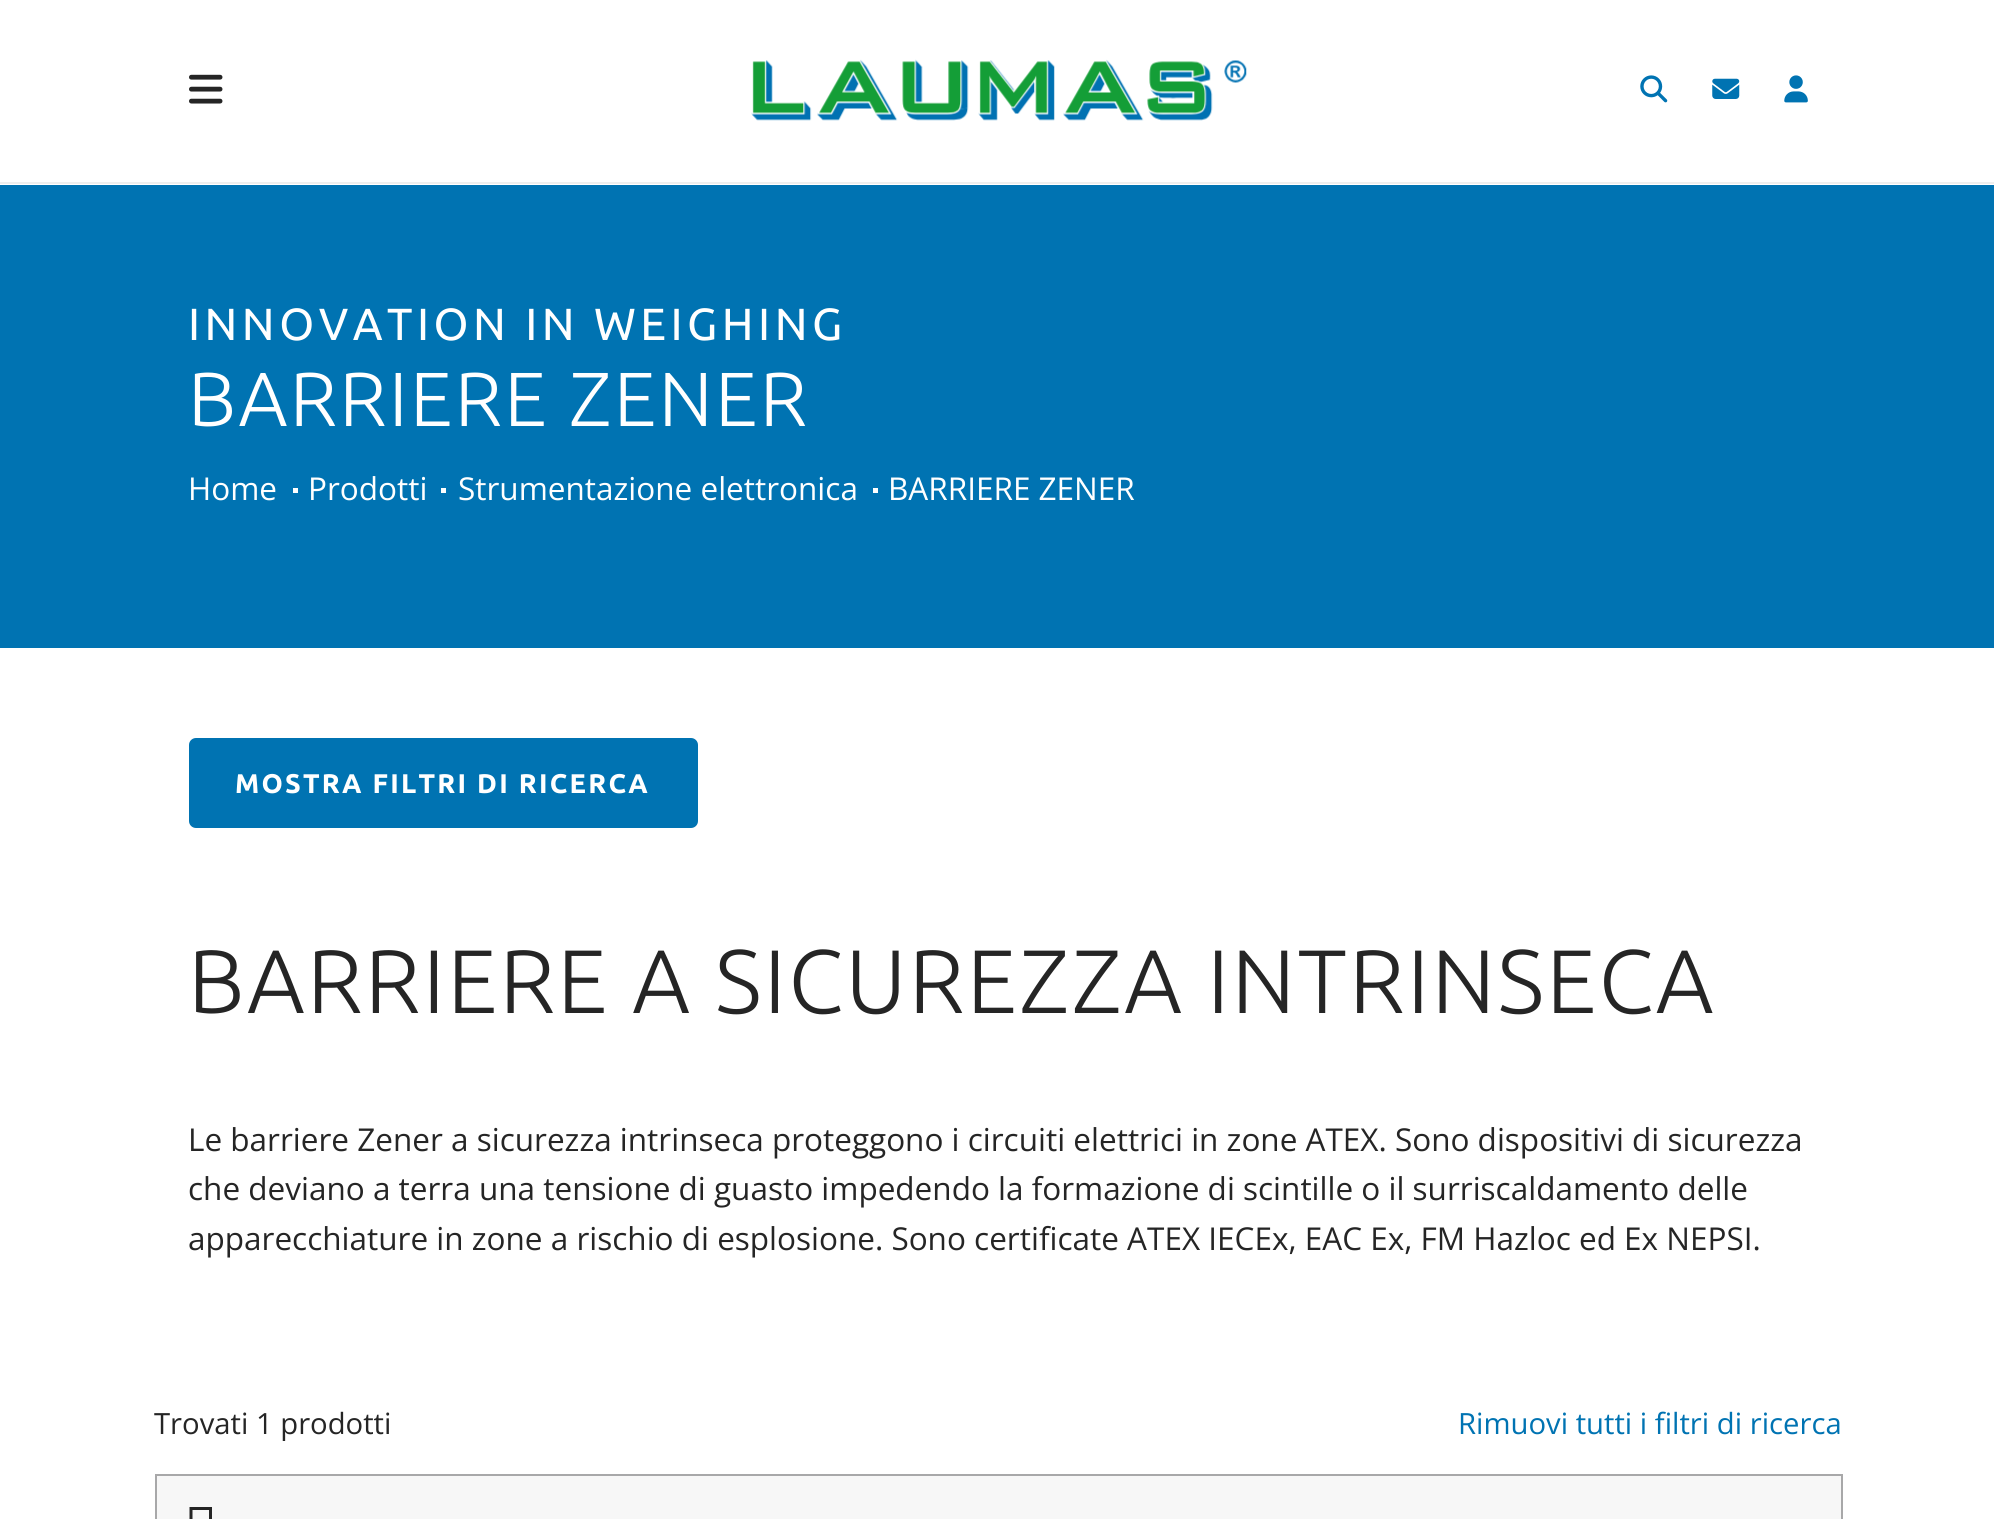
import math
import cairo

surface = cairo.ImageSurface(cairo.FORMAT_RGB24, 1994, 1519)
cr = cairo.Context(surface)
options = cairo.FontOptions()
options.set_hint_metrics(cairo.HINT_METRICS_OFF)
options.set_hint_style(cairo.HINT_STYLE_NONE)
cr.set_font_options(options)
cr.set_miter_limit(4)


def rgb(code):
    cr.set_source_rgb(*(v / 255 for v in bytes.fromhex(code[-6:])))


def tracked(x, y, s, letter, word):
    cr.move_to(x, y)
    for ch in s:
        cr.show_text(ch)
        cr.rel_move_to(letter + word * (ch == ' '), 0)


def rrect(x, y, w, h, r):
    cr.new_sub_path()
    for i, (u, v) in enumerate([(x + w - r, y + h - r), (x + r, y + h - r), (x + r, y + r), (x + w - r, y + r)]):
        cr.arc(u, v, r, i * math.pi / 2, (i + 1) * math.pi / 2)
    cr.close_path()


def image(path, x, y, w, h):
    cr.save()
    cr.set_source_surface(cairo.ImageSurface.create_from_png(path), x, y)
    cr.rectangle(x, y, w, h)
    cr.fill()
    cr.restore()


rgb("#ffffff")
cr.paint()
rgb("#eeeeee")
cr.rectangle(0, 182, 1994, 2)
cr.fill()
image("img/1.png", 189, 74, 34, 30)
image("img/2.png", 751, 59, 496, 62)
image("img/3.png", 1640, 75, 28, 28)
image("img/4.png", 1712, 78, 28, 21)
image("img/5.png", 1784, 75, 24, 28)
for x, y, w, h, color in [
    (0, 185, 1994, 463, "#0073b2"),
    (293, 488, 5, 5, "#ffffff"),
    (441, 488, 5, 5, "#ffffff"),
    (873, 488, 5, 5, "#ffffff"),
]:
    rgb(color)
    cr.rectangle(x, y, w, h)
    cr.fill()
rgb("#0073b2")
rrect(190, 739, 507, 88, 6)
cr.fill_preserve()
cr.stroke()
rgb("#f7f7f7")
cr.rectangle(156, 1475, 1686, 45)
cr.fill_preserve()
rgb("#a8a8a9")
cr.stroke()
rgb("#252525")
cr.new_path()
cr.move_to(189.5, 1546)
cr.line_to(189.5, 1507)
cr.line_to(212, 1507)
cr.line_to(212, 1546)
cr.close_path()
cr.move_to(192.5, 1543)
cr.line_to(209, 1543)
cr.line_to(209, 1510)
cr.line_to(192.5, 1510)
cr.close_path()
cr.fill()
cr.select_font_face("Ubuntu")
cr.set_font_size(45)
rgb("#ffffff")
tracked(188, 340, "INNOVATION IN WEIGHING", 4.5, 0)
cr.select_font_face("Ubuntu Light")
cr.set_font_size(76.5)
tracked(188, 426, "BARRIERE ZENER", 2.25, 0)
cr.select_font_face("Open Sans")
cr.set_font_size(31.5)
for x, y, s in [
    (188, 500, "Home"),
    (308, 500, "Prodotti"),
    (458, 500, "Strumentazione elettronica"),
    (888, 500, "BARRIERE ZENER"),
]:
    cr.move_to(x, y)
    cr.show_text(s)
cr.select_font_face("Ubuntu", cairo.FONT_SLANT_NORMAL, cairo.FONT_WEIGHT_BOLD)
cr.set_font_size(27)
tracked(235, 793, "MOSTRA FILTRI DI RICERCA", 2.25, 0)
cr.select_font_face("Ubuntu Light")
cr.set_font_size(90)
rgb("#252525")
tracked(188, 1013, "BARRIERE A SICUREZZA INTRINSECA", 2.25, 0)
cr.select_font_face("Open Sans")
cr.set_font_size(31.5)
for x, y, s in [
    (188, 1151, "Le barriere Zener a sicurezza intrinseca proteggono i circuiti elettrici in zone ATEX. Sono dispositivi di sicurezza"),
    (188, 1200, "che deviano a terra una tensione di guasto impedendo la formazione di scintille o il surriscaldamento delle"),
    (188, 1250, "apparecchiature in zone a rischio di esplosione. Sono certificate ATEX IECEx, EAC Ex, FM Hazloc ed Ex NEPSI."),
]:
    cr.move_to(x, y)
    cr.show_text(s)
cr.set_font_size(29.25)
cr.move_to(154, 1434)
cr.show_text("Trovati 1 prodotti")
rgb("#0073b2")
cr.move_to(1458, 1434)
cr.show_text("Rimuovi tutti i filtri di ricerca")
surface.write_to_png("page.png")
